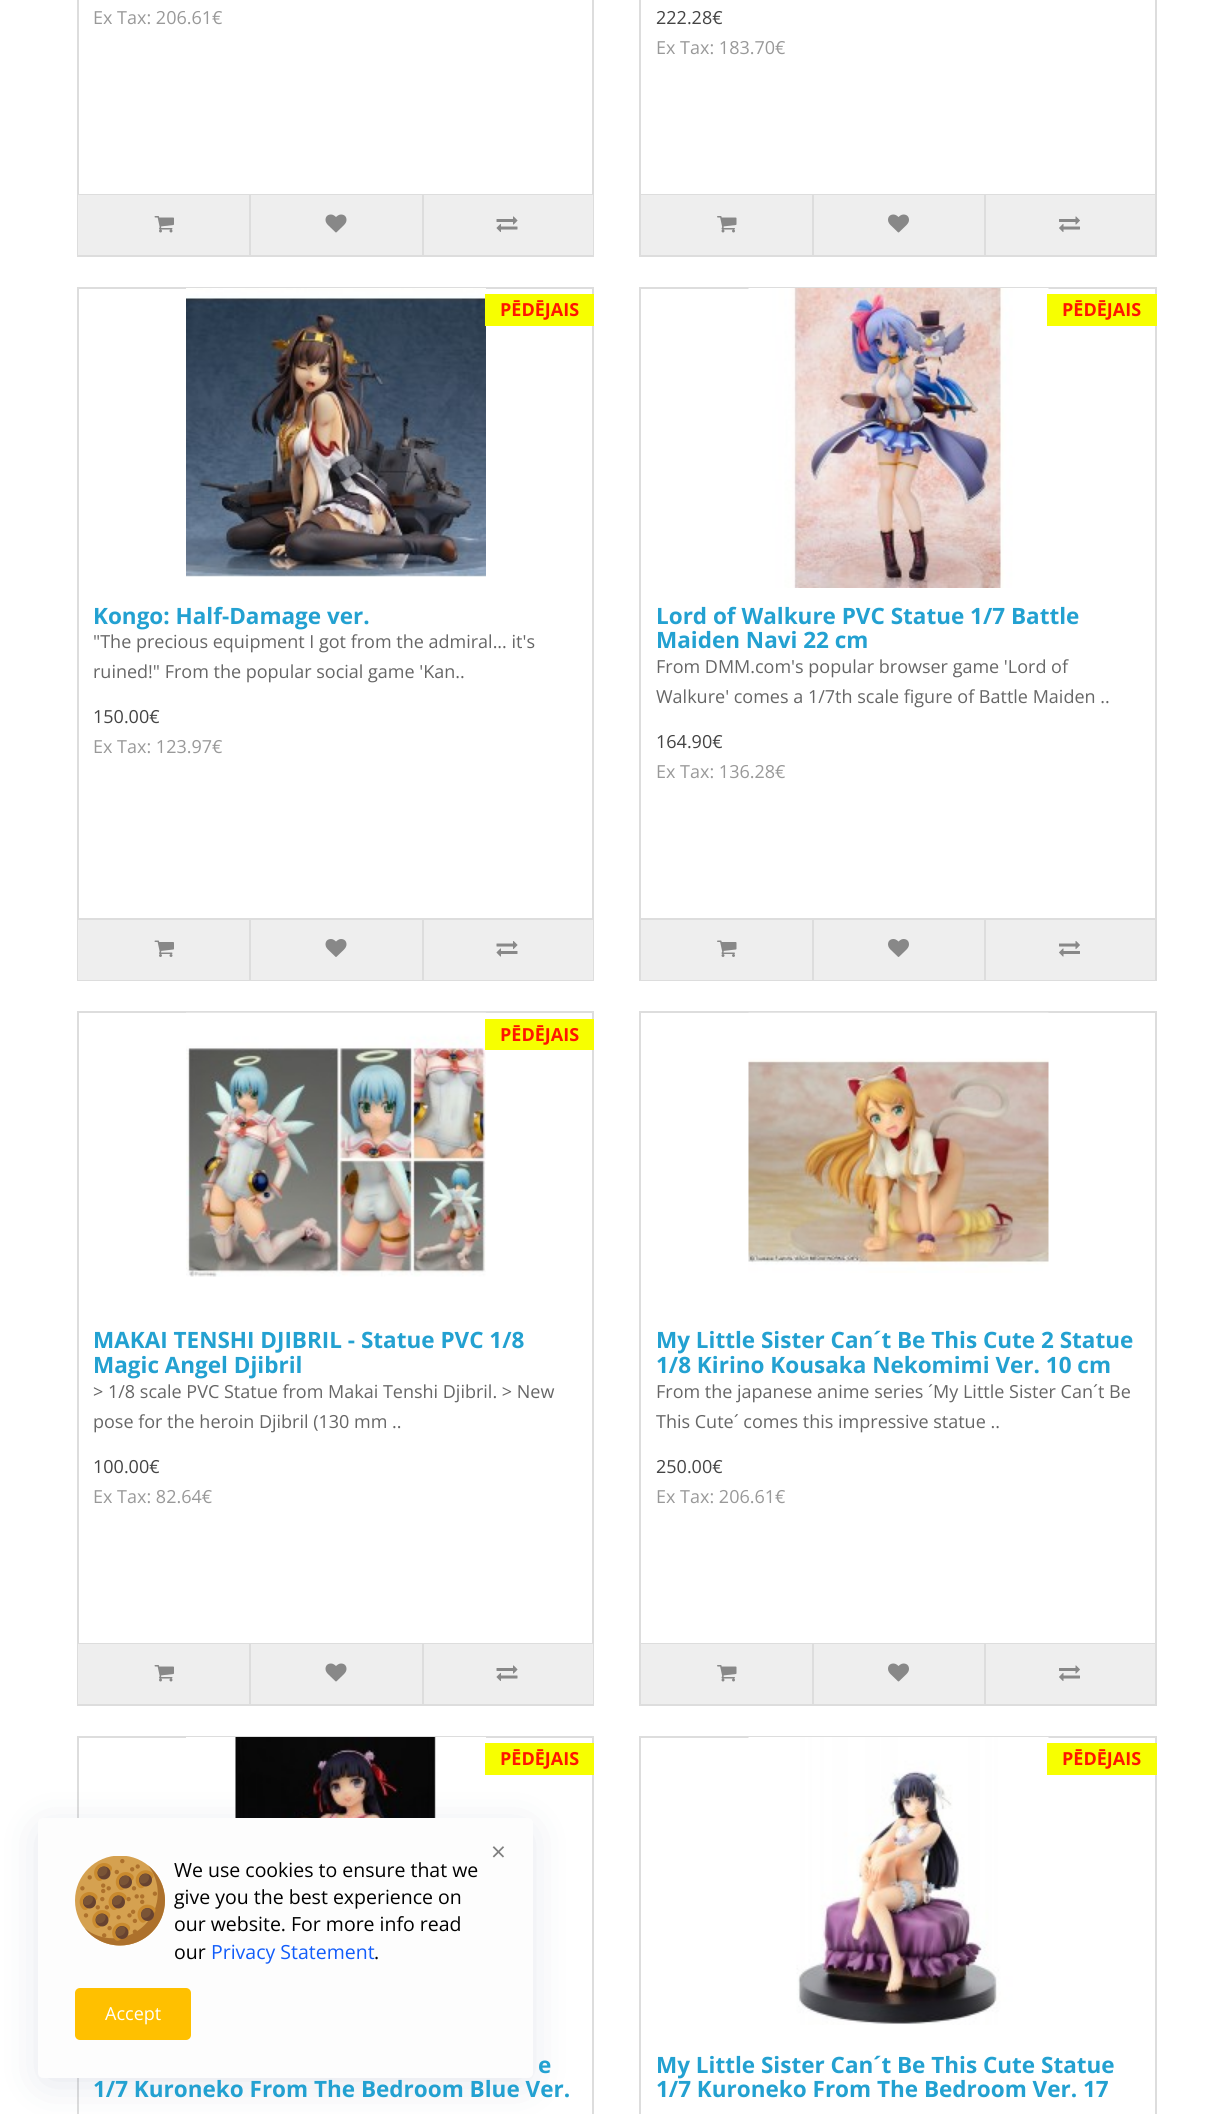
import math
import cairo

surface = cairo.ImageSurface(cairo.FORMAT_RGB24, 1232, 2114)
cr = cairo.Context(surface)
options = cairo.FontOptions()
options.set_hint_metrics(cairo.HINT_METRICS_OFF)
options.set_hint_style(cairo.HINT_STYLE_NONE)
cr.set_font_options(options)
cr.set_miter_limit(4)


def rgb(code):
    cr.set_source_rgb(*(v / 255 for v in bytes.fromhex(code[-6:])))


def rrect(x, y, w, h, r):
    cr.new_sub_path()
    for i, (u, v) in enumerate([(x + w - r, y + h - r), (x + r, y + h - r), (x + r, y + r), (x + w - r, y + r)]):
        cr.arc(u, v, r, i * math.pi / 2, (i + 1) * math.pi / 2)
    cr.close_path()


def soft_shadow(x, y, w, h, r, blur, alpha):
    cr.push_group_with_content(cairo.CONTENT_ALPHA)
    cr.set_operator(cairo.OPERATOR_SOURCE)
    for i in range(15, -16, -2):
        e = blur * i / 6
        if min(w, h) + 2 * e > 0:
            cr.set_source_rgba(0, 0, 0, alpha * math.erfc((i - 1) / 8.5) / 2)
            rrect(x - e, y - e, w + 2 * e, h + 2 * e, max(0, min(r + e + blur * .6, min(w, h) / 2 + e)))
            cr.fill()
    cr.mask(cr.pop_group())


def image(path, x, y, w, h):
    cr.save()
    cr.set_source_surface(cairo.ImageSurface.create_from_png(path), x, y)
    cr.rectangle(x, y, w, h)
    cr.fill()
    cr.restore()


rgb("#ffffff")
cr.paint()
cr.rectangle(78, -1, 515, 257)
rgb("#dddddd")
cr.stroke()
cr.rectangle(78, 194, 515, 1)
cr.fill()
rgb("#eeeeee")
cr.rectangle(78, 195, 171, 60)
cr.fill()
image("img/1.png", 154, 216, 20, 17)
cr.rectangle(251, 195, 171, 60)
cr.fill()
rgb("#dddddd")
cr.rectangle(249, 195, 2, 60)
cr.fill()
image("img/2.png", 325, 214, 22, 19)
rgb("#eeeeee")
cr.rectangle(424, 195, 169, 60)
cr.fill()
rgb("#dddddd")
cr.rectangle(422, 195, 2, 60)
cr.fill()
image("img/3.png", 496, 216, 22, 16)
cr.rectangle(640, -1, 516, 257)
cr.stroke()
cr.rectangle(641, 194, 514, 1)
cr.fill()
rgb("#eeeeee")
cr.rectangle(641, 195, 171, 60)
cr.fill()
image("img/4.png", 717, 216, 20, 17)
cr.rectangle(814, 195, 170, 60)
cr.fill()
rgb("#dddddd")
cr.rectangle(812, 195, 2, 60)
cr.fill()
image("img/5.png", 888, 214, 21, 19)
rgb("#eeeeee")
cr.rectangle(986, 195, 169, 60)
cr.fill()
rgb("#dddddd")
cr.rectangle(984, 195, 2, 60)
cr.fill()
image("img/6.png", 1059, 216, 21, 16)
cr.rectangle(78, 288, 515, 692)
cr.stroke()
image("img/7.png", 186, 288, 300, 289)
for x, y, w, h, color in [
    (485, 294, 109, 32, "#f7ff00"),
    (78, 920, 515, 60, "#eeeeee"),
    (78, 918, 515, 2, "#dddddd"),
]:
    rgb(color)
    cr.rectangle(x, y, w, h)
    cr.fill()
image("img/8.png", 154, 940, 20, 17)
cr.rectangle(249, 920, 2, 60)
cr.fill()
image("img/9.png", 325, 939, 22, 18)
cr.rectangle(422, 920, 2, 60)
cr.fill()
image("img/10.png", 496, 941, 22, 16)
cr.rectangle(640, 288, 516, 692)
cr.stroke()
image("img/11.png", 748, 288, 301, 300)
for x, y, w, h, color in [
    (1047, 294, 110, 32, "#f7ff00"),
    (641, 920, 514, 60, "#eeeeee"),
    (641, 918, 514, 2, "#dddddd"),
]:
    rgb(color)
    cr.rectangle(x, y, w, h)
    cr.fill()
image("img/12.png", 717, 940, 20, 17)
cr.rectangle(812, 920, 2, 60)
cr.fill()
image("img/13.png", 888, 939, 21, 18)
cr.rectangle(984, 920, 2, 60)
cr.fill()
image("img/14.png", 1059, 941, 21, 16)
cr.rectangle(78, 1012, 515, 693)
cr.stroke()
image("img/15.png", 186, 1012, 300, 265)
for x, y, w, h, color in [
    (485, 1019, 109, 31, "#f7ff00"),
    (78, 1643, 515, 1, "#dddddd"),
    (78, 1644, 171, 60, "#eeeeee"),
]:
    rgb(color)
    cr.rectangle(x, y, w, h)
    cr.fill()
image("img/1.png", 154, 1665, 20, 17)
cr.rectangle(251, 1644, 171, 60)
cr.fill()
rgb("#dddddd")
cr.rectangle(249, 1644, 2, 60)
cr.fill()
image("img/2.png", 325, 1663, 22, 19)
rgb("#eeeeee")
cr.rectangle(424, 1644, 169, 60)
cr.fill()
rgb("#dddddd")
cr.rectangle(422, 1644, 2, 60)
cr.fill()
image("img/3.png", 496, 1665, 22, 16)
cr.rectangle(640, 1012, 516, 693)
cr.stroke()
image("img/16.png", 748, 1012, 301, 261)
cr.rectangle(641, 1643, 514, 1)
cr.fill()
rgb("#eeeeee")
cr.rectangle(641, 1644, 171, 60)
cr.fill()
image("img/4.png", 717, 1665, 20, 17)
cr.rectangle(814, 1644, 170, 60)
cr.fill()
rgb("#dddddd")
cr.rectangle(812, 1644, 2, 60)
cr.fill()
image("img/5.png", 888, 1663, 21, 19)
rgb("#eeeeee")
cr.rectangle(986, 1644, 169, 60)
cr.fill()
rgb("#dddddd")
cr.rectangle(984, 1644, 2, 60)
cr.fill()
image("img/6.png", 1059, 1665, 21, 16)
cr.rectangle(78, 1737, 515, 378)
cr.stroke()
image("img/17.png", 186, 1737, 300, 81)
rgb("#f7ff00")
cr.rectangle(485, 1743, 109, 32)
cr.fill()
cr.rectangle(640, 1737, 516, 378)
rgb("#dddddd")
cr.stroke()
image("img/18.png", 748, 1737, 301, 288)
rgb("#f7ff00")
cr.rectangle(1047, 1743, 110, 32)
cr.fill()
rgb("#223865")
soft_shadow(45, 1833, 480, 245, 0, 22.5, 0.15)
rgb("#fdfdfd")
rrect(38, 1818, 495, 260, 5)
cr.fill()
image("img/19.png", 75, 1856, 90, 90)
rgb("#ffc000")
rrect(75, 1988, 116, 52, 5)
cr.fill()
cr.select_font_face("Open Sans")
cr.set_font_size(18)
rgb("#999999")
cr.move_to(93, 24)
cr.show_text("Ex Tax: 206.61€")
rgb("#444444")
cr.move_to(656, 24)
cr.show_text("222.28€")
rgb("#999999")
cr.move_to(656, 54)
cr.show_text("Ex Tax: 183.70€")
cr.select_font_face("Open Sans", cairo.FONT_SLANT_NORMAL, cairo.FONT_WEIGHT_BOLD)
rgb("#ff1500")
cr.move_to(500, 316)
cr.show_text("PĒDĒJAIS")
cr.set_font_size(22.5)
rgb("#23a1d1")
cr.move_to(93, 624)
cr.show_text("Kongo: Half-Damage ver.")
cr.select_font_face("Open Sans")
cr.set_font_size(18)
rgb("#666666")
cr.move_to(93, 648)
cr.show_text("\"The precious equipment I got from the admiral... it's")
cr.move_to(93, 678)
cr.show_text("ruined!\" From the popular social game 'Kan..")
rgb("#444444")
cr.move_to(93, 723)
cr.show_text("150.00€")
rgb("#999999")
cr.move_to(93, 753)
cr.show_text("Ex Tax: 123.97€")
cr.select_font_face("Open Sans", cairo.FONT_SLANT_NORMAL, cairo.FONT_WEIGHT_BOLD)
rgb("#ff1500")
cr.move_to(1062, 316)
cr.show_text("PĒDĒJAIS")
cr.set_font_size(22.5)
rgb("#23a1d1")
cr.move_to(656, 624)
cr.show_text("Lord of Walkure PVC Statue 1/7 Battle")
cr.move_to(656, 648)
cr.show_text("Maiden Navi 22 cm")
cr.select_font_face("Open Sans")
cr.set_font_size(18)
rgb("#666666")
cr.move_to(656, 673)
cr.show_text("From DMM.com's popular browser game 'Lord of")
cr.move_to(656, 703)
cr.show_text("Walkure' comes a 1/7th scale figure of Battle Maiden ..")
rgb("#444444")
cr.move_to(656, 748)
cr.show_text("164.90€")
rgb("#999999")
cr.move_to(656, 778)
cr.show_text("Ex Tax: 136.28€")
cr.select_font_face("Open Sans", cairo.FONT_SLANT_NORMAL, cairo.FONT_WEIGHT_BOLD)
rgb("#ff1500")
cr.move_to(500, 1041)
cr.show_text("PĒDĒJAIS")
cr.set_font_size(22.5)
rgb("#23a1d1")
cr.move_to(93, 1348)
cr.show_text("MAKAI TENSHI DJIBRIL - Statue PVC 1/8")
cr.move_to(93, 1373)
cr.show_text("Magic Angel Djibril")
cr.select_font_face("Open Sans")
cr.set_font_size(18)
rgb("#666666")
cr.move_to(93, 1398)
cr.show_text("> 1/8 scale PVC Statue from Makai Tenshi Djibril. > New")
cr.move_to(93, 1428)
cr.show_text("pose for the heroin Djibril (130 mm ..")
rgb("#444444")
cr.move_to(93, 1473)
cr.show_text("100.00€")
rgb("#999999")
cr.move_to(93, 1503)
cr.show_text("Ex Tax: 82.64€")
cr.select_font_face("Open Sans", cairo.FONT_SLANT_NORMAL, cairo.FONT_WEIGHT_BOLD)
cr.set_font_size(22.5)
rgb("#23a1d1")
cr.move_to(656, 1348)
cr.show_text("My Little Sister Can´t Be This Cute 2 Statue")
cr.move_to(656, 1373)
cr.show_text("1/8 Kirino Kousaka Nekomimi Ver. 10 cm")
cr.select_font_face("Open Sans")
cr.set_font_size(18)
rgb("#666666")
cr.move_to(656, 1398)
cr.show_text("From the japanese anime series ´My Little Sister Can´t Be")
cr.move_to(656, 1428)
cr.show_text("This Cute´ comes this impressive statue ..")
rgb("#444444")
cr.move_to(656, 1473)
cr.show_text("250.00€")
rgb("#999999")
cr.move_to(656, 1503)
cr.show_text("Ex Tax: 206.61€")
cr.select_font_face("Open Sans", cairo.FONT_SLANT_NORMAL, cairo.FONT_WEIGHT_BOLD)
rgb("#ff1500")
cr.move_to(500, 1765)
cr.show_text("PĒDĒJAIS")
cr.set_font_size(22.5)
rgb("#23a1d1")
cr.move_to(538, 2073)
cr.show_text("e")
cr.move_to(93, 2097)
cr.show_text("1/7 Kuroneko From The Bedroom Blue Ver.")
cr.set_font_size(18)
rgb("#ff1500")
cr.move_to(1062, 1765)
cr.show_text("PĒDĒJAIS")
cr.set_font_size(22.5)
rgb("#23a1d1")
cr.move_to(656, 2073)
cr.show_text("My Little Sister Can´t Be This Cute Statue")
cr.move_to(656, 2097)
cr.show_text("1/7 Kuroneko From The Bedroom Ver. 17")
cr.select_font_face("Open Sans")
cr.set_font_size(26)
rgb("#7f7f7f")
cr.move_to(491, 1861)
cr.show_text("×")
cr.set_font_size(19.5)
rgb("#000000")
for x, y, s in [
    (174, 1877, "We use cookies to ensure that we"),
    (174, 1904, "give you the best experience on"),
    (174, 1931, "our website. For more info read"),
    (174, 1959, "our"),
]:
    cr.move_to(x, y)
    cr.show_text(s)
rgb("#115cfa")
cr.move_to(211, 1959)
cr.show_text("Privacy Statement")
rgb("#000000")
cr.move_to(374, 1959)
cr.show_text(".")
cr.set_font_size(18)
rgb("#ffffff")
cr.move_to(105, 2020)
cr.show_text("Accept")
surface.write_to_png("page.png")
